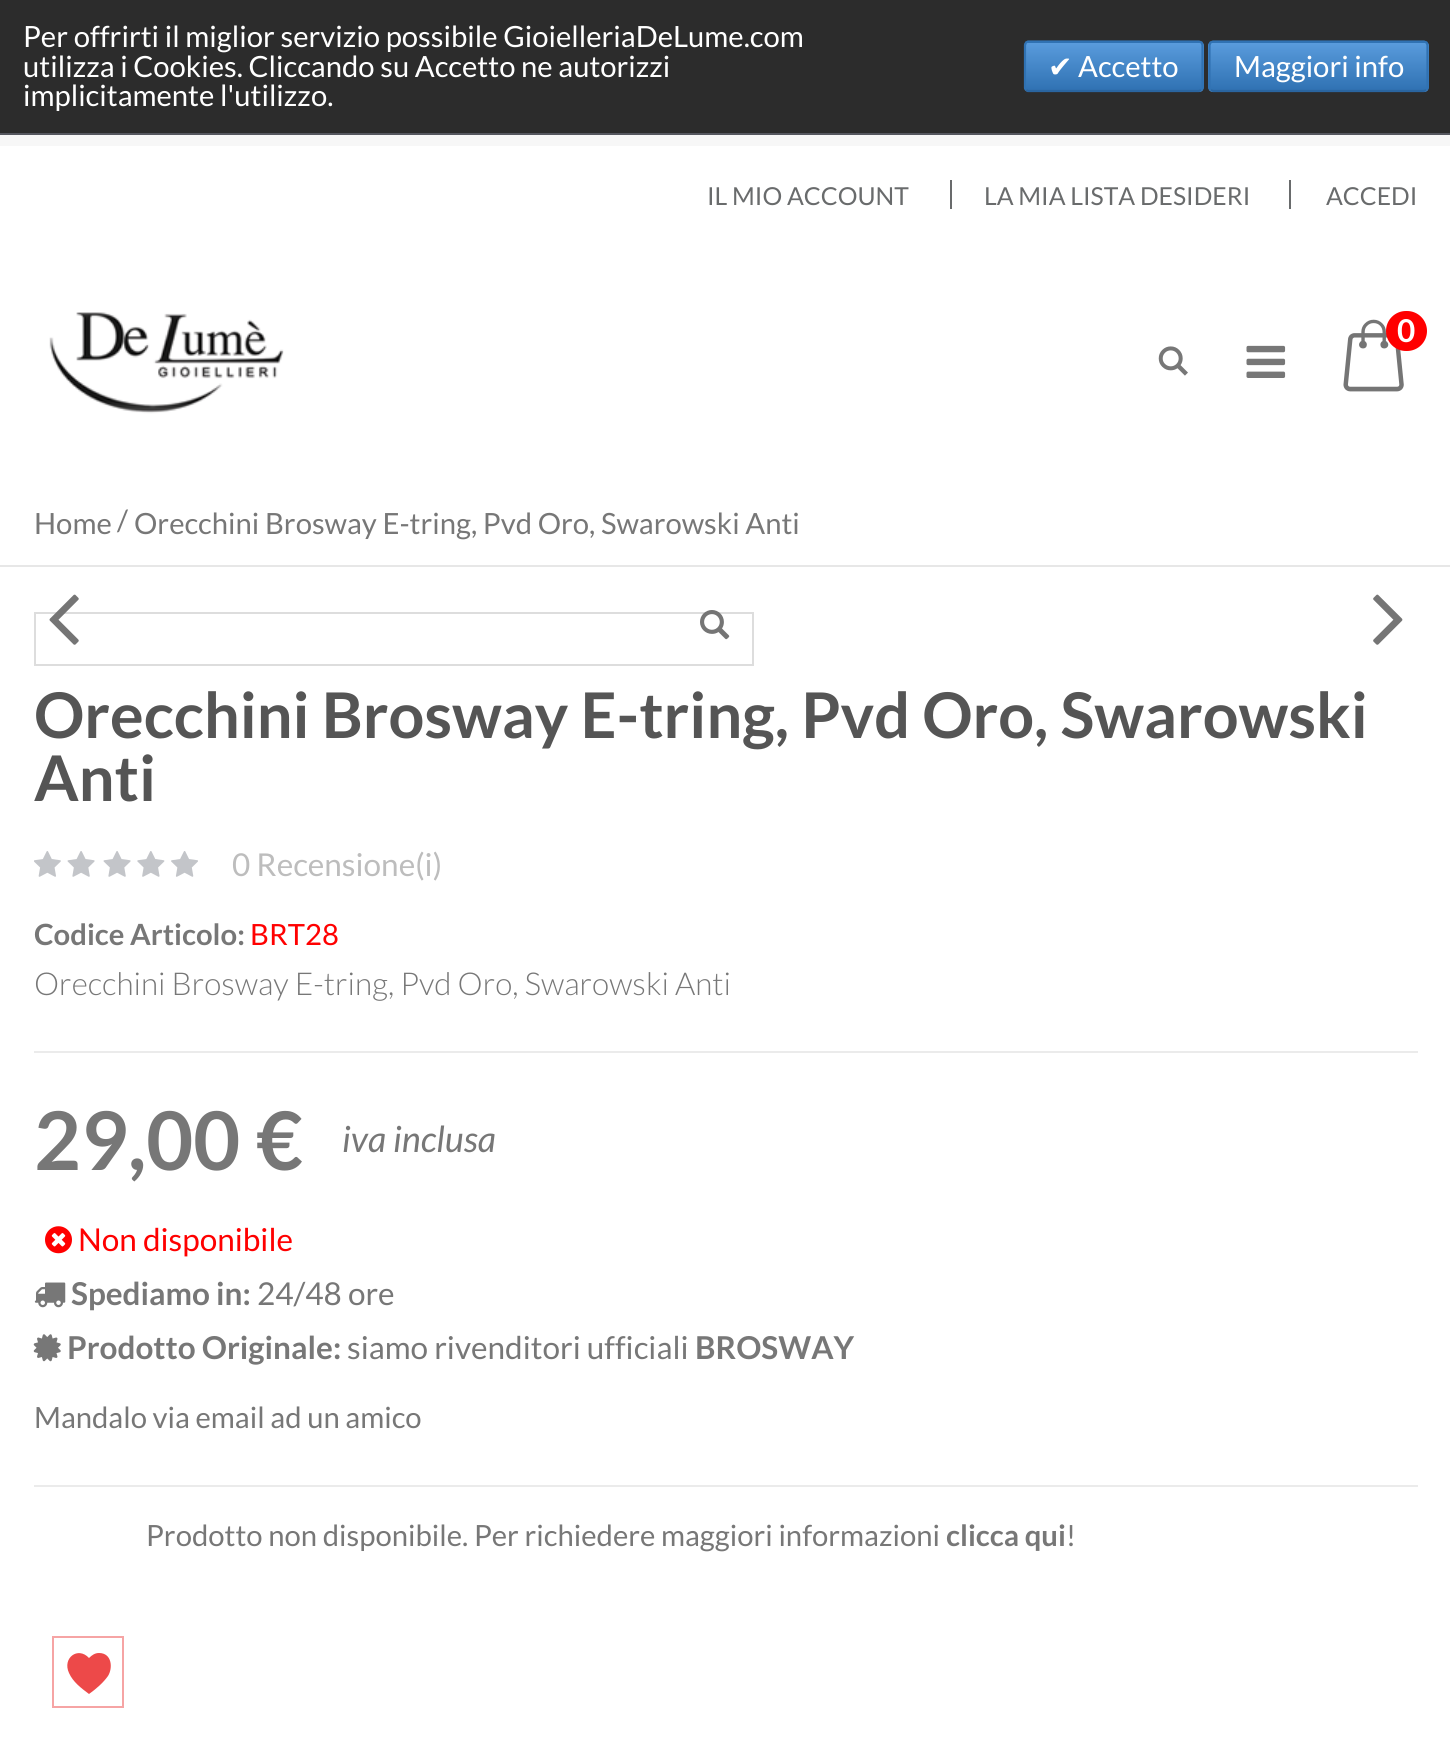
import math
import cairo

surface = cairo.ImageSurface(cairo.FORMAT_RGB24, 1450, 1754)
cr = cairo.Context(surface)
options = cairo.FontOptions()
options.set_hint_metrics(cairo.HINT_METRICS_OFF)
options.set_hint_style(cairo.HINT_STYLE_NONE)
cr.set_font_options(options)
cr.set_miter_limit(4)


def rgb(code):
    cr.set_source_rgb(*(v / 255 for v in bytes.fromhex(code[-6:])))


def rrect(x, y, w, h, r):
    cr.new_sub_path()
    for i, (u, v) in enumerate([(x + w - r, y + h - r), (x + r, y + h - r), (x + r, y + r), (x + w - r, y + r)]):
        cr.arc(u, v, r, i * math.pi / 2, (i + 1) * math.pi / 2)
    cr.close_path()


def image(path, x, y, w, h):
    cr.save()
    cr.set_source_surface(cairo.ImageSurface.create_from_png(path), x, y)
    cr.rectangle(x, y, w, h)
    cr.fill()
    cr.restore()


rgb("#ffffff")
cr.paint()
rgb("#2c2c2c")
cr.rectangle(0, 0, 1450, 133)
cr.fill()
rgb("#55575f")
cr.rectangle(0, 133, 1450, 2)
cr.fill()
cr.save()
rrect(1024, 41, 180, 51, 5)
cr.clip()
gradient = cairo.LinearGradient(1114, -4.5, 1114, 43)
gradient.add_color_stop_rgba(0, 0.349, 0.608, 0.863, 1)
gradient.add_color_stop_rgba(1, 0.188, 0.447, 0.702, 1)
cr.set_source(gradient)
cr.rectangle(1024, 41, 180, 2)
cr.fill()
gradient = cairo.LinearGradient(1114, 43, 1114, 90)
gradient.add_color_stop_rgba(0, 0.349, 0.608, 0.863, 1)
gradient.add_color_stop_rgba(1, 0.188, 0.447, 0.702, 1)
cr.set_source(gradient)
cr.rectangle(1024, 43, 180, 47)
cr.fill()
gradient = cairo.LinearGradient(1114, 90, 1114, 137)
gradient.add_color_stop_rgba(0, 0.349, 0.608, 0.863, 1)
gradient.add_color_stop_rgba(1, 0.188, 0.447, 0.702, 1)
cr.set_source(gradient)
cr.rectangle(1024, 90, 180, 2)
cr.fill()
cr.restore()
cr.new_path()
cr.move_to(1201.5, 90)
cr.line_to(1199, 91)
cr.line_to(1028, 91)
cr.line_to(1026, 90)
rgb("#2a65a0")
cr.set_line_width(2.2)
cr.stroke()
cr.new_path()
cr.move_to(1026, 90)
cr.line_to(1025, 88)
cr.line_to(1025, 45)
cr.line_to(1026, 42.5)
cr.line_to(1028, 41.5)
cr.line_to(1199, 41.5)
cr.line_to(1201.5, 42.5)
cr.line_to(1202.5, 45)
cr.line_to(1202.5, 88)
cr.line_to(1201.5, 90)
rgb("#3072b3")
cr.stroke()
cr.save()
rrect(1208, 41, 221, 51, 5)
cr.clip()
gradient = cairo.LinearGradient(1319, -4.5, 1319, 43)
gradient.add_color_stop_rgba(0, 0.349, 0.608, 0.863, 1)
gradient.add_color_stop_rgba(1, 0.188, 0.447, 0.702, 1)
cr.set_source(gradient)
cr.rectangle(1208, 41, 221, 2)
cr.fill()
gradient = cairo.LinearGradient(1319, 43, 1319, 90)
gradient.add_color_stop_rgba(0, 0.349, 0.608, 0.863, 1)
gradient.add_color_stop_rgba(1, 0.188, 0.447, 0.702, 1)
cr.set_source(gradient)
cr.rectangle(1208, 43, 221, 47)
cr.fill()
gradient = cairo.LinearGradient(1319, 90, 1319, 137)
gradient.add_color_stop_rgba(0, 0.349, 0.608, 0.863, 1)
gradient.add_color_stop_rgba(1, 0.188, 0.447, 0.702, 1)
cr.set_source(gradient)
cr.rectangle(1208, 90, 221, 2)
cr.fill()
cr.restore()
cr.new_path()
cr.move_to(1426.5, 90)
cr.line_to(1424, 91)
cr.line_to(1213, 91)
cr.line_to(1210.5, 90)
rgb("#2a65a0")
cr.stroke()
cr.new_path()
cr.move_to(1210.5, 90)
cr.line_to(1209.5, 88)
cr.line_to(1209.5, 45)
cr.line_to(1210.5, 42.5)
cr.line_to(1213, 41.5)
cr.line_to(1424, 41.5)
cr.line_to(1426.5, 42.5)
cr.line_to(1427.5, 45)
cr.line_to(1427.5, 88)
cr.line_to(1426.5, 90)
rgb("#3072b3")
cr.stroke()
for x, y, w, h, color in [
    (0, 135, 1450, 11, "#f7f7f7"),
    (950, 180, 2, 29, "#696b6c"),
    (1289, 180, 2, 29, "#696b6c"),
]:
    rgb(color)
    cr.rectangle(x, y, w, h)
    cr.fill()
image("img/1.png", 49, 312, 235, 102)
image("img/2.png", 1343, 319, 61, 73)
rgb("#ff0000")
rrect(1388.5, 313.5, 36, 35, 17.5)
cr.fill_preserve()
cr.set_line_width(5)
cr.stroke()
image("img/3.png", 1158, 346, 30, 30)
image("img/4.png", 1246, 345, 40, 33)
rgb("#e7e7e7")
cr.rectangle(0, 565, 1450, 2)
cr.fill()
cr.rectangle(35, 613, 718, 52)
rgb("#dddddd")
cr.set_line_width(2)
cr.stroke()
image("img/5.png", 49, 594, 30, 51)
image("img/6.png", 1373, 594, 30, 51)
image("img/7.png", 700, 610, 30, 30)
image("img/8.png", 34, 851, 27, 26)
image("img/9.png", 67, 851, 28, 26)
image("img/9.png", 103, 851, 28, 26)
image("img/10.png", 137, 851, 28, 26)
image("img/11.png", 171, 851, 27, 26)
rgb("#ebebeb")
cr.rectangle(34, 1051, 1384, 2)
cr.fill()
cr.rectangle(34, 1485, 1384, 2)
cr.fill()
image("img/12.png", 45, 1226, 27, 28)
image("img/13.png", 34, 1282, 32, 26)
image("img/14.png", 33, 1334, 28, 28)
cr.rectangle(53, 1637, 70, 70)
rgb("#f6a4a4")
cr.stroke()
rgb("#ed4949")
cr.new_path()
cr.move_to(99, 1653)
cr.curve_to(112, 1653, 113, 1668, 108, 1676)
cr.curve_to(103, 1683, 96, 1689, 89, 1694)
cr.curve_to(81, 1688, 73, 1682, 69, 1673)
cr.curve_to(62, 1658, 78, 1646, 89, 1658)
cr.curve_to(92, 1655, 95, 1653, 99, 1653)
cr.close_path()
cr.fill()
cr.select_font_face("Lato")
cr.set_font_size(29.25)
rgb("#ffffff")
for x, y, s in [
    (23, 47, "Per offrirti il miglior servizio possibile GioielleriaDeLume.com"),
    (23, 77, "utilizza i Cookies. Cliccando su Accetto ne autorizzi"),
    (23, 106, "implicitamente l'utilizzo."),
]:
    cr.move_to(x, y)
    cr.show_text(s)
cr.select_font_face("DejaVu Sans")
cr.move_to(1048, 77)
cr.show_text("✔")
cr.select_font_face("Lato")
cr.move_to(1078, 77)
cr.show_text("Accetto")
cr.move_to(1234, 77)
cr.show_text("Maggiori info")
cr.set_font_size(24.75)
rgb("#696b6c")
for x, y, s in [
    (707, 205, "IL MIO ACCOUNT"),
    (984, 205, "LA MIA LISTA DESIDERI"),
    (1326, 205, "ACCEDI"),
]:
    cr.move_to(x, y)
    cr.show_text(s)
cr.select_font_face("Lato", cairo.FONT_SLANT_NORMAL, cairo.FONT_WEIGHT_BOLD)
cr.set_font_size(31.5)
rgb("#ffffff")
cr.move_to(1397, 342)
cr.show_text("0")
cr.select_font_face("Lato")
cr.set_font_size(29.25)
rgb("#777777")
for x, y, s in [
    (34, 534, "Home"),
    (117, 531, "/"),
    (134, 534, "Orecchini Brosway E-tring, Pvd Oro, Swarowski Anti"),
]:
    cr.move_to(x, y)
    cr.show_text(s)
cr.select_font_face("Lato", cairo.FONT_SLANT_NORMAL, cairo.FONT_WEIGHT_BOLD)
cr.set_font_size(63)
rgb("#555555")
cr.move_to(34, 738)
cr.show_text("Orecchini Brosway E-tring, Pvd Oro, Swarowski")
cr.move_to(34, 801)
cr.show_text("Anti")
cr.select_font_face("Lato")
cr.set_font_size(31.5)
rgb("#bdbdbd")
cr.move_to(232, 876)
cr.show_text("0 Recensione(i)")
cr.select_font_face("Lato", cairo.FONT_SLANT_NORMAL, cairo.FONT_WEIGHT_BOLD)
cr.set_font_size(29.25)
rgb("#777777")
cr.move_to(34, 945)
cr.show_text("Codice Articolo:")
cr.select_font_face("Lato")
rgb("#ff0000")
cr.move_to(250, 945)
cr.show_text("BRT28")
cr.select_font_face("Lato Light")
cr.set_font_size(31.5)
rgb("#777777")
cr.move_to(34, 995)
cr.show_text("Orecchini Brosway E-tring, Pvd Oro, Swarowski Anti")
cr.select_font_face("Lato", cairo.FONT_SLANT_NORMAL, cairo.FONT_WEIGHT_BOLD)
cr.set_font_size(81)
cr.move_to(34, 1170)
cr.show_text("29,00 €")
cr.select_font_face("Lato", cairo.FONT_SLANT_ITALIC)
cr.set_font_size(36)
cr.move_to(342, 1152)
cr.show_text("iva inclusa")
cr.select_font_face("Lato")
cr.set_font_size(31.5)
rgb("#ff0000")
cr.move_to(78, 1251)
cr.show_text("Non disponibile")
cr.select_font_face("Lato", cairo.FONT_SLANT_NORMAL, cairo.FONT_WEIGHT_BOLD)
rgb("#777777")
cr.move_to(71, 1305)
cr.show_text("Spediamo in:")
cr.select_font_face("Lato")
cr.move_to(257, 1305)
cr.show_text("24/48 ore")
cr.select_font_face("Lato", cairo.FONT_SLANT_NORMAL, cairo.FONT_WEIGHT_BOLD)
cr.move_to(67, 1359)
cr.show_text("Prodotto Originale:")
cr.select_font_face("Lato")
cr.move_to(347, 1359)
cr.show_text("siamo rivenditori ufficiali")
cr.select_font_face("Lato", cairo.FONT_SLANT_NORMAL, cairo.FONT_WEIGHT_BOLD)
cr.move_to(695, 1359)
cr.show_text("BROSWAY")
cr.select_font_face("Lato")
cr.set_font_size(29.25)
cr.move_to(34, 1428)
cr.show_text("Mandalo via email ad un amico")
cr.move_to(146, 1546)
cr.show_text("Prodotto non disponibile. Per richiedere maggiori informazioni")
cr.select_font_face("Lato", cairo.FONT_SLANT_NORMAL, cairo.FONT_WEIGHT_BOLD)
cr.move_to(946, 1546)
cr.show_text("clicca qui")
cr.select_font_face("Lato")
cr.move_to(1066, 1546)
cr.show_text("!")
surface.write_to_png("page.png")
